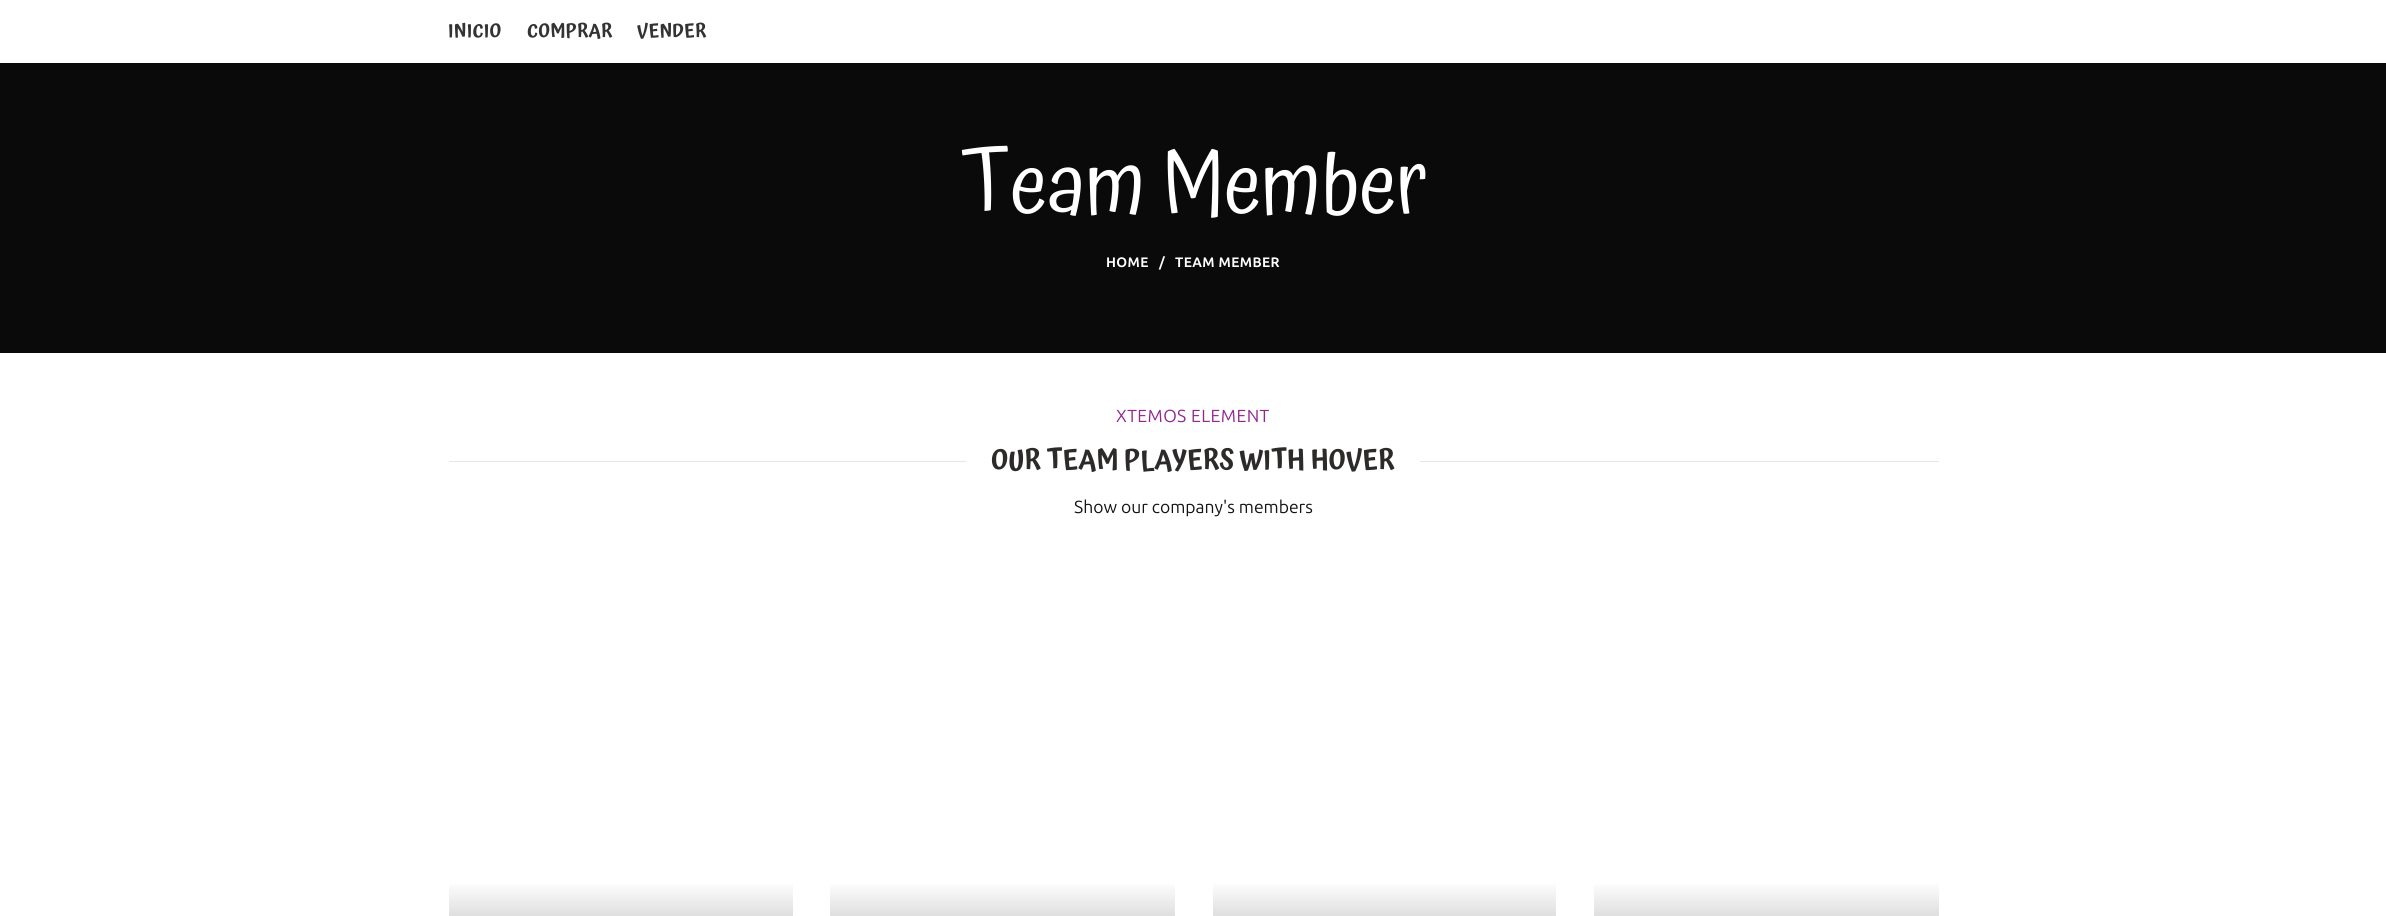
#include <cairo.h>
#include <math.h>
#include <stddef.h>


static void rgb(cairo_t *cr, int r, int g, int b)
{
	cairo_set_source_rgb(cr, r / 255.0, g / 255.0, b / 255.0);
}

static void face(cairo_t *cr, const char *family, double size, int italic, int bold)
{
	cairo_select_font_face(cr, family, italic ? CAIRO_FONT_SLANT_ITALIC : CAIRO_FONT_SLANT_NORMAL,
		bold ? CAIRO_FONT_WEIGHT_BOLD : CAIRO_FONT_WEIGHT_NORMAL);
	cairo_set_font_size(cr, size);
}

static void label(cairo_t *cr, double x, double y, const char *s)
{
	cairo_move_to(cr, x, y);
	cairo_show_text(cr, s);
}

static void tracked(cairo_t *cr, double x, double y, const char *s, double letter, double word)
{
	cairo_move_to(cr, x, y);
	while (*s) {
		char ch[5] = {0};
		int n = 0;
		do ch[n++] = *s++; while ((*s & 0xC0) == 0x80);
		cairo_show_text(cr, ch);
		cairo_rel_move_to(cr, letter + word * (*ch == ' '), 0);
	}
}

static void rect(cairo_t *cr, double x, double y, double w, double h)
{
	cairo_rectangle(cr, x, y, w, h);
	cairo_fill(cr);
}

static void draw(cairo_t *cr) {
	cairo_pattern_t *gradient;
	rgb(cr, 255, 255, 255);
	cairo_paint(cr);
	face(cr, "Atma SemiBold", 18.75, 0, 0);
	rgb(cr, 51, 51, 51);
	tracked(cr, 448, 37, "INICIO", 0.25, 0);
	tracked(cr, 527, 37, "COMPRAR", 0.25, 0);
	tracked(cr, 637, 37, "VENDER", 0.25, 0);
	rgb(cr, 10, 10, 10);
	rect(cr, 0, 63, 2386, 290);
	face(cr, "Atma", 85, 0, 0);
	rgb(cr, 255, 255, 255);
	label(cr, 960, 213, "Team Member");
	face(cr, "Ubuntu", 13.75, 0, 1);
	tracked(cr, 1106, 267, "HOME", 0.4, 0);
	tracked(cr, 1159, 267, "/", 0.4, 0);
	tracked(cr, 1175, 267, "TEAM MEMBER", 0.4, 0);
	face(cr, "Ubuntu", 17.5, 0, 0);
	rgb(cr, 147, 38, 143);
	tracked(cr, 1116, 422, "XTEMOS ELEMENT", 0.4, 0);
	rgb(cr, 230, 230, 230);
	rect(cr, 449, 461, 517, 1);
	face(cr, "Atma SemiBold", 27.5, 0, 0);
	rgb(cr, 45, 42, 42);
	label(cr, 991, 469, "OUR TEAM PLAYERS WITH HOVER");
	rgb(cr, 230, 230, 230);
	rect(cr, 1420, 461, 519, 1);
	face(cr, "Ubuntu", 17.5, 0, 0);
	rgb(cr, 20, 20, 20);
	label(cr, 1074, 513, "Show our company's members");
	gradient = cairo_pattern_create_linear(621, 881, 621, 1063);
	cairo_pattern_add_color_stop_rgba(gradient, 0, 1, 1, 1, 1);
	cairo_pattern_add_color_stop_rgba(gradient, 1, 0.349, 0.349, 0.349, 1);
	cairo_set_source(cr, gradient);
	cairo_pattern_destroy(gradient);
	rect(cr, 449, 884, 344, 32);
	gradient = cairo_pattern_create_linear(1003, 881, 1003, 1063);
	cairo_pattern_add_color_stop_rgba(gradient, 0, 1, 1, 1, 1);
	cairo_pattern_add_color_stop_rgba(gradient, 1, 0.349, 0.349, 0.349, 1);
	cairo_set_source(cr, gradient);
	cairo_pattern_destroy(gradient);
	rect(cr, 830, 884, 345, 32);
	gradient = cairo_pattern_create_linear(1384, 881, 1384, 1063);
	cairo_pattern_add_color_stop_rgba(gradient, 0, 1, 1, 1, 1);
	cairo_pattern_add_color_stop_rgba(gradient, 1, 0.349, 0.349, 0.349, 1);
	cairo_set_source(cr, gradient);
	cairo_pattern_destroy(gradient);
	rect(cr, 1213, 884, 343, 32);
	gradient = cairo_pattern_create_linear(1766, 881, 1766, 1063);
	cairo_pattern_add_color_stop_rgba(gradient, 0, 1, 1, 1, 1);
	cairo_pattern_add_color_stop_rgba(gradient, 1, 0.349, 0.349, 0.349, 1);
	cairo_set_source(cr, gradient);
	cairo_pattern_destroy(gradient);
	rect(cr, 1594, 884, 345, 32);
}

int main(void) {
	cairo_surface_t *surface = cairo_image_surface_create(CAIRO_FORMAT_RGB24, 2386, 916);
	cairo_t *cr = cairo_create(surface);
	cairo_font_options_t *options = cairo_font_options_create();
	cairo_font_options_set_hint_metrics(options, CAIRO_HINT_METRICS_OFF);
	cairo_font_options_set_hint_style(options, CAIRO_HINT_STYLE_NONE);
	cairo_set_font_options(cr, options);
	cairo_set_miter_limit(cr, 4);
	draw(cr);
	cairo_surface_write_to_png(surface, "render.png");
	cairo_font_options_destroy(options);
	cairo_destroy(cr);
	cairo_surface_destroy(surface);
	return 0;
}
